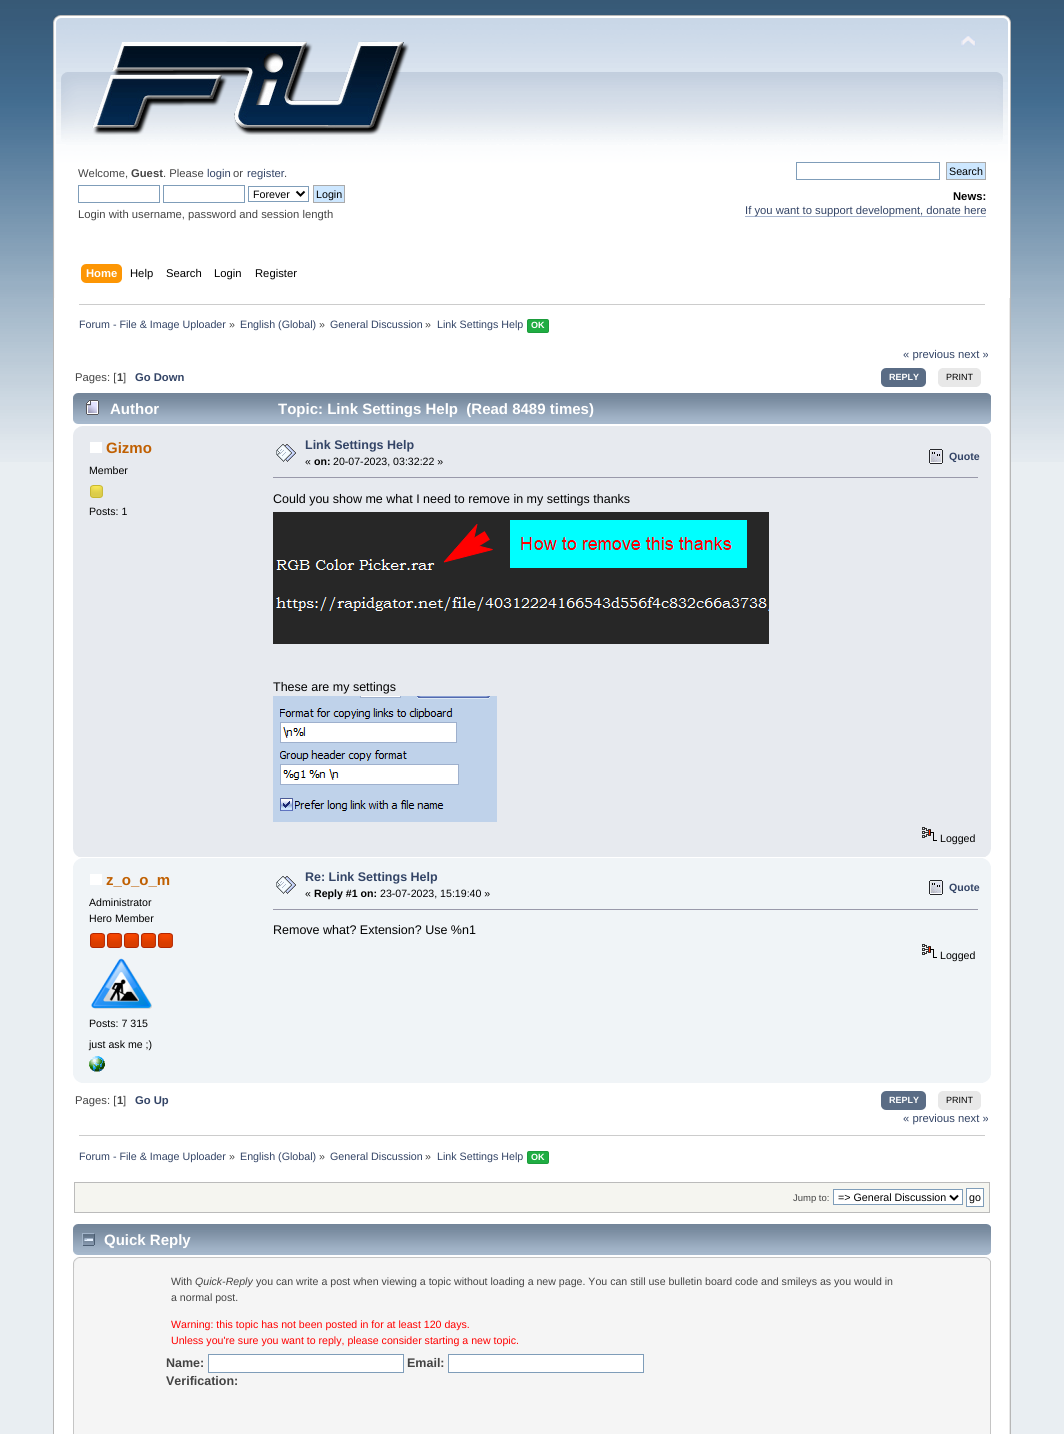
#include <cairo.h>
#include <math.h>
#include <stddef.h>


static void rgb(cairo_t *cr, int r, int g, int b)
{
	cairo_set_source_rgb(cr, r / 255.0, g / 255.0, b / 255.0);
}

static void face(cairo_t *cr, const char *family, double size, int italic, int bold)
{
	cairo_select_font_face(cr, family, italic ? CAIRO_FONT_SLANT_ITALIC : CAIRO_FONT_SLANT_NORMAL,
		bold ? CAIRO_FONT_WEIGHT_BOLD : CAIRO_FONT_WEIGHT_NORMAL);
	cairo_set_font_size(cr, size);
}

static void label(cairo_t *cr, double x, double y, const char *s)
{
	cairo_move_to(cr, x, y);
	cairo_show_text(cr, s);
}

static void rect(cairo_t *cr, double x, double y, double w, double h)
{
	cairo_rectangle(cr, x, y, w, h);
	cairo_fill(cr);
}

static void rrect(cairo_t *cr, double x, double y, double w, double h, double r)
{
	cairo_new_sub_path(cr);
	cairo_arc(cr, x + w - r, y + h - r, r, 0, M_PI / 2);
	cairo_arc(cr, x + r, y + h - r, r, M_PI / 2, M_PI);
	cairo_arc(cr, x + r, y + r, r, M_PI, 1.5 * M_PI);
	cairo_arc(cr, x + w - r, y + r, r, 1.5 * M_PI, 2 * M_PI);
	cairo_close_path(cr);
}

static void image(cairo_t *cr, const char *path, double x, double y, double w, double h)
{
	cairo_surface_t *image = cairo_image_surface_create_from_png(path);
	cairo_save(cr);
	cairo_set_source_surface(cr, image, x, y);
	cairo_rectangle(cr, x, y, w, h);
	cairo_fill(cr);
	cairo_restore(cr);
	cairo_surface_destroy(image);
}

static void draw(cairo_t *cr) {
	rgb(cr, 233, 238, 242);
	cairo_paint(cr);
	image(cr, "image0.png", 0, 0, 1064, 462);
	image(cr, "image1.png", 53, 15, 944, 283);
	image(cr, "image2.png", 997, 15, 14, 283);
	image(cr, "image3.png", 92, 41, 317, 94);
	image(cr, "image4.png", 961, 35, 15, 12);
	face(cr, "Liberation Sans", 11.25, 0, 0);
	rgb(cr, 68, 68, 68);
	label(cr, 78, 177, "Welcome,");
	face(cr, "Liberation Sans", 11.25, 0, 1);
	label(cr, 131, 177, "Guest");
	face(cr, "Liberation Sans", 11.25, 0, 0);
	label(cr, 163, 177, ". Please");
	rgb(cr, 51, 68, 102);
	label(cr, 207, 177, "login");
	rgb(cr, 68, 68, 68);
	label(cr, 233, 177, "or");
	rgb(cr, 51, 68, 102);
	label(cr, 247, 177, "register");
	rgb(cr, 68, 68, 68);
	label(cr, 284, 177, ".");
	cairo_rectangle(cr, 78.5, 185.5, 81, 17);
	rgb(cr, 127, 157, 185);
	cairo_set_line_width(cr, 1);
	cairo_stroke(cr);
	cairo_rectangle(cr, 163.5, 185.5, 81, 17);
	cairo_stroke(cr);
	cairo_rectangle(cr, 248.5, 186.5, 60, 15);
	cairo_stroke(cr);
	cairo_new_path(cr);
	cairo_move_to(cr, 296.5, 191.5);
	cairo_line_to(cr, 300.5, 195.5);
	cairo_line_to(cr, 304.5, 191.5);
	rgb(cr, 0, 0, 0);
	cairo_set_line_width(cr, 2);
	cairo_stroke(cr);
	face(cr, "Liberation Sans", 10.7, 0, 0);
	label(cr, 253, 198, "Forever");
	rgb(cr, 205, 231, 255);
	cairo_rectangle(cr, 313.5, 185.5, 31, 17);
	cairo_fill_preserve(cr);
	rgb(cr, 170, 170, 170);
	cairo_set_line_width(cr, 1);
	cairo_stroke(cr);
	rgb(cr, 0, 0, 0);
	label(cr, 316, 198, "Login");
	face(cr, "Liberation Sans", 11.25, 0, 0);
	rgb(cr, 68, 68, 68);
	label(cr, 78, 218, "Login with username, password and session length");
	cairo_rectangle(cr, 796.5, 162.5, 143, 17);
	rgb(cr, 127, 157, 185);
	cairo_stroke(cr);
	rgb(cr, 205, 231, 255);
	cairo_rectangle(cr, 946.5, 162.5, 39, 17);
	cairo_fill_preserve(cr);
	rgb(cr, 170, 170, 170);
	cairo_stroke(cr);
	face(cr, "Liberation Sans", 10.7, 0, 0);
	rgb(cr, 0, 0, 0);
	label(cr, 949, 175, "Search");
	face(cr, "Liberation Sans", 11.25, 0, 1);
	label(cr, 953, 200, "News:");
	rgb(cr, 168, 182, 207);
	rect(cr, 745, 216, 241, 1);
	face(cr, "Liberation Sans", 11.25, 0, 0);
	rgb(cr, 51, 68, 102);
	label(cr, 745, 214, "If you want to support development, donate here");
	image(cr, "image5.png", 86, 264, 36, 19);
	image(cr, "image6.png", 81, 264, 5, 19);
	face(cr, "Liberation Sans", 11.25, 0, 1);
	rgb(cr, 255, 255, 255);
	label(cr, 86, 277, "Home");
	face(cr, "Liberation Sans", 11.25, 0, 0);
	rgb(cr, 0, 0, 0);
	label(cr, 130, 277, "Help");
	label(cr, 166, 277, "Search");
	label(cr, 214, 277, "Login");
	label(cr, 255, 277, "Register");
	rgb(cr, 255, 255, 255);
	rect(cr, 54, 298, 955, 1136);
	rgb(cr, 183, 183, 183);
	rect(cr, 53, 298, 1, 1136);
	image(cr, "image7.png", 1009, 298, 2, 1136);
	rgb(cr, 204, 204, 204);
	rect(cr, 79, 304, 906, 1);
	face(cr, "Liberation Sans", 10.7, 0, 0);
	rgb(cr, 51, 68, 102);
	label(cr, 79, 328, "Forum - File & Image Uploader");
	rgb(cr, 68, 68, 68);
	label(cr, 229, 328, "»");
	rgb(cr, 51, 68, 102);
	label(cr, 240, 328, "English (Global)");
	rgb(cr, 68, 68, 68);
	label(cr, 319, 328, "»");
	rgb(cr, 51, 68, 102);
	label(cr, 330, 328, "General Discussion");
	rgb(cr, 68, 68, 68);
	label(cr, 425, 328, "»");
	rgb(cr, 51, 68, 102);
	label(cr, 437, 328, "Link Settings Help");
	rgb(cr, 31, 173, 66);
	rrect(cr, 527, 319, 22, 14, 2);
	cairo_fill(cr);
	rrect(cr, 527.5, 319.5, 21, 13, 1.5);
	cairo_set_source_rgba(cr, 0, 0, 0, 0.1);
	cairo_stroke(cr);
	face(cr, "Liberation Sans", 9, 0, 1);
	rgb(cr, 255, 255, 255);
	label(cr, 531, 328, "OK");
	face(cr, "Liberation Sans", 11.25, 0, 0);
	rgb(cr, 51, 68, 102);
	label(cr, 903, 358, "« previous next »");
	rgb(cr, 68, 68, 68);
	label(cr, 75, 381, "Pages: [");
	face(cr, "Liberation Sans", 11.25, 0, 1);
	label(cr, 117, 381, "1");
	face(cr, "Liberation Sans", 11.25, 0, 0);
	label(cr, 123, 381, "]");
	face(cr, "Liberation Sans", 11.25, 0, 1);
	rgb(cr, 51, 68, 102);
	label(cr, 135, 381, "Go Down");
	rgb(cr, 90, 108, 133);
	rect(cr, 886, 368, 35, 19);
	image(cr, "image8.png", 881, 368, 5, 19);
	image(cr, "image9.png", 921, 368, 5, 19);
	face(cr, "Liberation Sans", 9, 0, 1);
	rgb(cr, 255, 255, 255);
	label(cr, 889, 380, "REPLY");
	rgb(cr, 232, 232, 232);
	rect(cr, 942, 368, 35, 19);
	image(cr, "image10.png", 938, 368, 4, 19);
	image(cr, "image11.png", 977, 368, 4, 19);
	face(cr, "Liberation Sans", 9, 0, 0);
	rgb(cr, 0, 0, 0);
	label(cr, 946, 380, "PRINT");
	image(cr, "image12.png", 73, 393, 913, 31);
	image(cr, "image13.png", 986, 393, 5, 31);
	image(cr, "image14.png", 86, 400, 13, 15);
	face(cr, "Liberation Sans", 15, 0, 1);
	rgb(cr, 255, 255, 255);
	label(cr, 110, 414, "Author");
	label(cr, 278, 414, "Topic: Link Settings Help  (Read 8489 times)");
	rgb(cr, 231, 234, 239);
	rect(cr, 73, 426, 918, 431);
	image(cr, "image15.png", 73, 426, 9, 9);
	image(cr, "image16.png", 982, 426, 9, 8);
	rgb(cr, 255, 255, 255);
	rect(cr, 90, 442, 12, 11);
	rgb(cr, 192, 96, 2);
	label(cr, 106, 453, "Gizmo");
	face(cr, "Liberation Sans", 10.6, 0, 0);
	rgb(cr, 0, 0, 0);
	label(cr, 89, 474, "Member");
	image(cr, "image17.png", 90, 485, 13, 13);
	label(cr, 89, 515, "Posts: 1");
	image(cr, "image18.png", 276, 444, 20, 18);
	face(cr, "Liberation Sans", 12.5, 0, 1);
	rgb(cr, 51, 68, 102);
	label(cr, 305, 449, "Link Settings Help");
	face(cr, "Liberation Sans", 10.6, 0, 0);
	rgb(cr, 0, 0, 0);
	label(cr, 305, 465, "«");
	face(cr, "Liberation Sans", 10.6, 0, 1);
	label(cr, 314, 465, "on:");
	face(cr, "Liberation Sans", 10.6, 0, 0);
	label(cr, 333, 465, "20-07-2023, 03:32:22 »");
	image(cr, "image19.png", 929, 449, 14, 15);
	face(cr, "Liberation Sans", 10.6, 0, 1);
	rgb(cr, 51, 68, 102);
	label(cr, 949, 460, "Quote");
	rgb(cr, 153, 153, 170);
	rect(cr, 273, 477, 705, 1);
	face(cr, "Liberation Sans", 12.5, 0, 0);
	rgb(cr, 0, 0, 0);
	label(cr, 273, 503, "Could you show me what I need to remove in my settings thanks");
	image(cr, "image20.png", 273, 512, 496, 132);
	label(cr, 273, 691, "These are my settings");
	image(cr, "image21.png", 273, 696, 224, 126);
	image(cr, "image22.png", 922, 827, 15, 14);
	face(cr, "Liberation Sans", 10.6, 0, 0);
	label(cr, 940, 842, "Logged");
	image(cr, "image23.png", 73, 849, 6, 8);
	image(cr, "image24.png", 985, 849, 6, 8);
	rgb(cr, 240, 244, 247);
	rect(cr, 73, 858, 918, 225);
	image(cr, "image25.png", 73, 858, 8, 8);
	image(cr, "image26.png", 983, 858, 8, 8);
	rgb(cr, 255, 255, 255);
	rect(cr, 90, 874, 12, 11);
	face(cr, "Liberation Sans", 15, 0, 1);
	rgb(cr, 192, 96, 2);
	label(cr, 106, 885, "z_o_o_m");
	face(cr, "Liberation Sans", 10.6, 0, 0);
	rgb(cr, 0, 0, 0);
	label(cr, 89, 906, "Administrator");
	label(cr, 89, 922, "Hero Member");
	image(cr, "image27.png", 90, 933, 15, 15);
	image(cr, "image27.png", 107, 933, 15, 15);
	image(cr, "image27.png", 124, 933, 15, 15);
	image(cr, "image27.png", 141, 933, 15, 15);
	image(cr, "image27.png", 158, 933, 15, 15);
	image(cr, "image28.png", 91, 958, 61, 51);
	label(cr, 89, 1027, "Posts: 7 315");
	label(cr, 89, 1048, "just ask me ;)");
	image(cr, "image29.png", 89, 1056, 16, 16);
	image(cr, "image30.png", 276, 876, 20, 18);
	face(cr, "Liberation Sans", 12.5, 0, 1);
	rgb(cr, 51, 68, 102);
	label(cr, 305, 881, "Re: Link Settings Help");
	face(cr, "Liberation Sans", 10.6, 0, 0);
	rgb(cr, 0, 0, 0);
	label(cr, 305, 897, "«");
	face(cr, "Liberation Sans", 10.6, 0, 1);
	label(cr, 314, 897, "Reply #1 on:");
	face(cr, "Liberation Sans", 10.6, 0, 0);
	label(cr, 380, 897, "23-07-2023, 15:19:40 »");
	image(cr, "image31.png", 929, 880, 14, 15);
	face(cr, "Liberation Sans", 10.6, 0, 1);
	rgb(cr, 51, 68, 102);
	label(cr, 949, 891, "Quote");
	rgb(cr, 153, 153, 170);
	rect(cr, 273, 909, 705, 1);
	face(cr, "Liberation Sans", 12.5, 0, 0);
	rgb(cr, 0, 0, 0);
	label(cr, 273, 934, "Remove what? Extension? Use %n1");
	image(cr, "image32.png", 922, 944, 15, 14);
	face(cr, "Liberation Sans", 10.6, 0, 0);
	label(cr, 940, 959, "Logged");
	image(cr, "image33.png", 73, 1075, 8, 8);
	image(cr, "image34.png", 983, 1075, 8, 8);
	face(cr, "Liberation Sans", 11.25, 0, 0);
	rgb(cr, 68, 68, 68);
	label(cr, 75, 1104, "Pages: [");
	face(cr, "Liberation Sans", 11.25, 0, 1);
	label(cr, 117, 1104, "1");
	face(cr, "Liberation Sans", 11.25, 0, 0);
	label(cr, 123, 1104, "]");
	face(cr, "Liberation Sans", 11.25, 0, 1);
	rgb(cr, 51, 68, 102);
	label(cr, 135, 1104, "Go Up");
	rgb(cr, 90, 108, 133);
	rect(cr, 886, 1091, 35, 19);
	image(cr, "image8.png", 881, 1091, 5, 19);
	image(cr, "image9.png", 921, 1091, 5, 19);
	face(cr, "Liberation Sans", 9, 0, 1);
	rgb(cr, 255, 255, 255);
	label(cr, 889, 1103, "REPLY");
	rgb(cr, 232, 232, 232);
	rect(cr, 942, 1091, 35, 19);
	image(cr, "image10.png", 938, 1091, 4, 19);
	image(cr, "image11.png", 977, 1091, 4, 19);
	face(cr, "Liberation Sans", 9, 0, 0);
	rgb(cr, 0, 0, 0);
	label(cr, 946, 1103, "PRINT");
	face(cr, "Liberation Sans", 11.25, 0, 0);
	rgb(cr, 51, 68, 102);
	label(cr, 903, 1122, "« previous next »");
	rgb(cr, 204, 204, 204);
	rect(cr, 79, 1135, 906, 1);
	face(cr, "Liberation Sans", 10.7, 0, 0);
	rgb(cr, 51, 68, 102);
	label(cr, 79, 1160, "Forum - File & Image Uploader");
	rgb(cr, 68, 68, 68);
	label(cr, 229, 1160, "»");
	rgb(cr, 51, 68, 102);
	label(cr, 240, 1160, "English (Global)");
	rgb(cr, 68, 68, 68);
	label(cr, 319, 1160, "»");
	rgb(cr, 51, 68, 102);
	label(cr, 330, 1160, "General Discussion");
	rgb(cr, 68, 68, 68);
	label(cr, 425, 1160, "»");
	rgb(cr, 51, 68, 102);
	label(cr, 437, 1160, "Link Settings Help");
	rgb(cr, 31, 173, 66);
	rrect(cr, 527, 1151, 22, 13, 2);
	cairo_fill(cr);
	rrect(cr, 527.5, 1151.5, 21, 12, 1.5);
	cairo_set_source_rgba(cr, 0, 0, 0, 0.1);
	cairo_stroke(cr);
	face(cr, "Liberation Sans", 9, 0, 1);
	rgb(cr, 255, 255, 255);
	label(cr, 531, 1160, "OK");
	rgb(cr, 245, 245, 240);
	cairo_rectangle(cr, 74.5, 1182.5, 915, 30);
	cairo_fill_preserve(cr);
	rgb(cr, 187, 187, 187);
	cairo_stroke(cr);
	face(cr, "Liberation Sans", 9.5, 0, 0);
	rgb(cr, 68, 68, 68);
	label(cr, 793, 1201, "Jump to:");
	rgb(cr, 255, 255, 255);
	cairo_rectangle(cr, 833.5, 1189.5, 129, 15);
	cairo_fill_preserve(cr);
	rgb(cr, 127, 157, 185);
	cairo_stroke(cr);
	cairo_new_path(cr);
	cairo_move_to(cr, 950, 1195.5);
	cairo_line_to(cr, 954, 1199.5);
	cairo_line_to(cr, 958, 1195.5);
	rgb(cr, 0, 0, 0);
	cairo_set_line_width(cr, 2);
	cairo_stroke(cr);
	face(cr, "Liberation Sans", 10.7, 0, 0);
	label(cr, 838, 1201, "=> General Discussion");
	rgb(cr, 255, 255, 255);
	cairo_rectangle(cr, 966.5, 1188.5, 17, 18);
	cairo_fill_preserve(cr);
	rgb(cr, 127, 157, 185);
	cairo_set_line_width(cr, 1);
	cairo_stroke(cr);
	rgb(cr, 0, 0, 0);
	label(cr, 969, 1201, "go");
	image(cr, "image12.png", 73, 1224, 913, 31);
	image(cr, "image13.png", 986, 1224, 5, 31);
	image(cr, "image35.png", 82, 1233, 13, 13);
	face(cr, "Liberation Sans", 15, 0, 1);
	rgb(cr, 255, 255, 255);
	label(cr, 104, 1245, "Quick Reply");
	image(cr, "image36.png", 73, 1257, 912, 11);
	image(cr, "image37.png", 985, 1257, 6, 11);
	rgb(cr, 245, 245, 245);
	rect(cr, 74, 1268, 916, 166);
	rgb(cr, 197, 197, 197);
	rect(cr, 990, 1268, 1, 166);
	rect(cr, 73, 1268, 1, 166);
	face(cr, "Liberation Sans", 10.6, 0, 0);
	rgb(cr, 68, 68, 68);
	label(cr, 171, 1285, "With");
	face(cr, "Liberation Sans", 10.6, 1, 0);
	label(cr, 195, 1285, "Quick-Reply");
	face(cr, "Liberation Sans", 10.6, 0, 0);
	label(cr, 256, 1285, "you can write a post when viewing a topic without loading a new page. You can still use bulletin board code and smileys as you would in");
	label(cr, 171, 1301, "a normal post.");
	rgb(cr, 255, 0, 0);
	label(cr, 171, 1328, "Warning: this topic has not been posted in for at least 120 days.");
	label(cr, 171, 1344, "Unless you're sure you want to reply, please consider starting a new topic.");
	face(cr, "Liberation Sans", 12.5, 0, 1);
	rgb(cr, 68, 68, 68);
	label(cr, 166, 1367, "Name:");
	rgb(cr, 255, 255, 255);
	cairo_rectangle(cr, 208.5, 1354.5, 195, 18);
	cairo_fill_preserve(cr);
	rgb(cr, 127, 157, 185);
	cairo_stroke(cr);
	rgb(cr, 68, 68, 68);
	label(cr, 407, 1367, "Email:");
	rgb(cr, 255, 255, 255);
	cairo_rectangle(cr, 448.5, 1354.5, 195, 18);
	cairo_fill_preserve(cr);
	rgb(cr, 127, 157, 185);
	cairo_stroke(cr);
	rgb(cr, 68, 68, 68);
	label(cr, 166, 1385, "Verification:");
}

int main(void) {
	cairo_surface_t *surface = cairo_image_surface_create(CAIRO_FORMAT_RGB24, 1064, 1434);
	cairo_t *cr = cairo_create(surface);
	cairo_font_options_t *options = cairo_font_options_create();
	cairo_font_options_set_hint_metrics(options, CAIRO_HINT_METRICS_OFF);
	cairo_font_options_set_hint_style(options, CAIRO_HINT_STYLE_NONE);
	cairo_set_font_options(cr, options);
	cairo_set_miter_limit(cr, 4);
	draw(cr);
	cairo_surface_write_to_png(surface, "render.png");
	cairo_font_options_destroy(options);
	cairo_destroy(cr);
	cairo_surface_destroy(surface);
	return 0;
}
